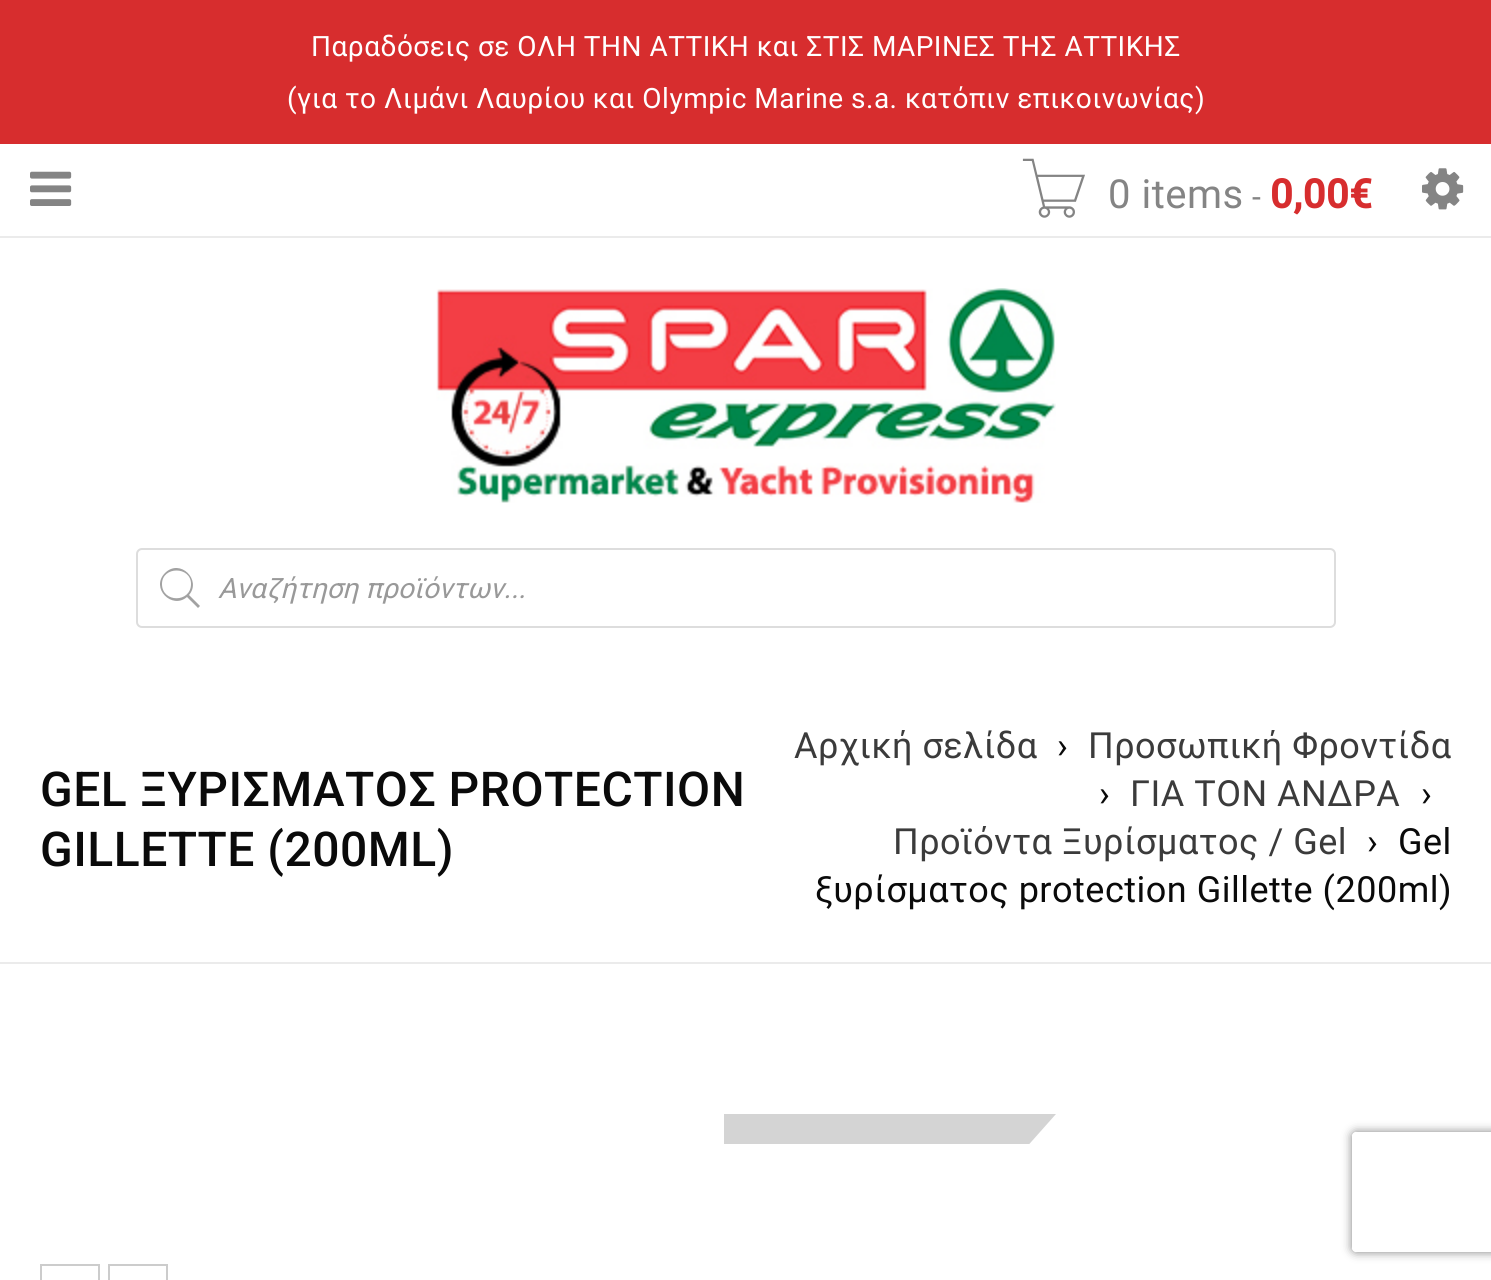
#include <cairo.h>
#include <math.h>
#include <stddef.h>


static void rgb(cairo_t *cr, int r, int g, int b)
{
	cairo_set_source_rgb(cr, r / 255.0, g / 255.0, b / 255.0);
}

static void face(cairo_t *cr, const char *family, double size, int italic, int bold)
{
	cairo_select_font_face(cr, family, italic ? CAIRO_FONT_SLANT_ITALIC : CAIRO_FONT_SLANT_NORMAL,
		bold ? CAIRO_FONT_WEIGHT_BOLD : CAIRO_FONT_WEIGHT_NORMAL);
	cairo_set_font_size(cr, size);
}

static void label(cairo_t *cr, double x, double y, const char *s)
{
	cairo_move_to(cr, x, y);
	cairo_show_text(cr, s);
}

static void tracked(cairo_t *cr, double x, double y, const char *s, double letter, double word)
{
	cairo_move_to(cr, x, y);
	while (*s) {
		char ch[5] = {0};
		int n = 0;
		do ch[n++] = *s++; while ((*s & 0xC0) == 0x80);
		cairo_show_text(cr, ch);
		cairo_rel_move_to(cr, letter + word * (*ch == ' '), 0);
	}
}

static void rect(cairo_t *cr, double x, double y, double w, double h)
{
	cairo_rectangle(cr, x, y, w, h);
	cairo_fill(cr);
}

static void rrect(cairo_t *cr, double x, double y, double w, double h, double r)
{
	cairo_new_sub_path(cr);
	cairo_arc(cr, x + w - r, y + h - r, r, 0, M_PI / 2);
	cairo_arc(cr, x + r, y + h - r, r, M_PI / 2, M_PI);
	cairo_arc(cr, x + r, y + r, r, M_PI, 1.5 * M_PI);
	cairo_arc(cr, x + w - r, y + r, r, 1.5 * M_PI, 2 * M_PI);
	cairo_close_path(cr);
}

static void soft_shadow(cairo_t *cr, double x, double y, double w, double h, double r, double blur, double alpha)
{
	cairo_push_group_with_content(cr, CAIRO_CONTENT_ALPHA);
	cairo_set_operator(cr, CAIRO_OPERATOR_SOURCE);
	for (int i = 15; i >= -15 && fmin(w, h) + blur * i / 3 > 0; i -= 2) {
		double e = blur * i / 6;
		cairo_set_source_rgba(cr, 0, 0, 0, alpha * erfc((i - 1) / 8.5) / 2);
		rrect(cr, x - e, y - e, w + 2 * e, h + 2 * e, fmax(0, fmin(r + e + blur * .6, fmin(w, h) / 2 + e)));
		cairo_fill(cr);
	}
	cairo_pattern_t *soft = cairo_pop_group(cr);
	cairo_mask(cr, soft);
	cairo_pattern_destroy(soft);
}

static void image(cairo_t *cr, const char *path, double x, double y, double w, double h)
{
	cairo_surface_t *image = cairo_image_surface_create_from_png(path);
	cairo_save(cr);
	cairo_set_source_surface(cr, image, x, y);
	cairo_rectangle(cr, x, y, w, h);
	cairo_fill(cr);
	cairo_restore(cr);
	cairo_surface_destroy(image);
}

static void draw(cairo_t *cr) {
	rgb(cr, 255, 255, 255);
	cairo_paint(cr);
	rgb(cr, 215, 45, 46);
	rect(cr, 0, 0, 1491, 144);
	face(cr, "Roboto", 28, 0, 0);
	rgb(cr, 255, 255, 255);
	tracked(cr, 311, 56, "Παραδόσεις σε ΟΛΗ ΤΗΝ ΑΤΤΙΚΗ και ΣΤΙΣ ΜΑΡΙΝΕΣ ΤΗΣ ΑΤΤΙΚΗΣ", 0.5, 0);
	tracked(cr, 287, 108, "(για το Λιμάνι Λαυρίου και Olympic Marine s.a. κατόπιν επικοινωνίας)", 0.5, 0);
	rgb(cr, 235, 235, 235);
	rect(cr, 0, 236, 1491, 2);
	image(cr, "image0.png", 30, 171, 42, 35);
	image(cr, "image1.png", 1022, 158, 63, 60);
	face(cr, "Roboto", 40, 0, 0);
	rgb(cr, 132, 132, 132);
	tracked(cr, 1108, 208, "0 items", 0.5, 0);
	face(cr, "Roboto", 32, 0, 0);
	tracked(cr, 1252, 208, "-", 0.5, 0);
	face(cr, "Roboto", 40, 0, 1);
	rgb(cr, 215, 45, 46);
	tracked(cr, 1270, 208, "0,00€", 0.5, 0);
	image(cr, "image2.png", 1422, 168, 42, 42);
	image(cr, "image3.png", 436, 288, 620, 215);
	rrect(cr, 137, 549, 1198, 78, 5);
	rgb(cr, 221, 221, 221);
	cairo_stroke(cr);
	rgb(cr, 162, 162, 162);
	cairo_new_path(cr);
	cairo_move_to(cr, 200, 606);
	cairo_line_to(cr, 189, 595);
	cairo_curve_to(cr, 202, 580, 180, 558, 165, 573);
	cairo_curve_to(cr, 150, 588, 172, 610, 187, 597);
	cairo_line_to(cr, 198, 608);
	cairo_close_path(cr);
	cairo_move_to(cr, 162, 584);
	cairo_curve_to(cr, 162, 566, 191, 566, 191, 584);
	cairo_curve_to(cr, 191, 603, 162, 603, 162, 584);
	cairo_close_path(cr);
	cairo_fill(cr);
	face(cr, "Roboto", 28, 1, 0);
	rgb(cr, 153, 153, 153);
	label(cr, 218, 598, "Αναζήτηση προϊόντων...");
	rgb(cr, 235, 235, 235);
	rect(cr, 0, 962, 1491, 2);
	face(cr, "Roboto Medium", 48, 0, 0);
	rgb(cr, 10, 10, 10);
	tracked(cr, 40, 806, "GEL ΞΥΡΙΣΜΑΤΟΣ PROTECTION", 0.5, 0);
	tracked(cr, 40, 866, "GILLETTE (200ML)", 0.5, 0);
	face(cr, "Roboto", 36, 0, 0);
	rgb(cr, 59, 59, 59);
	tracked(cr, 794, 758, "Αρχική σελίδα", 0.5, 0);
	rgb(cr, 10, 10, 10);
	tracked(cr, 1057, 758, "›", 0.5, 0);
	rgb(cr, 59, 59, 59);
	tracked(cr, 1088, 758, "Προσωπική Φροντίδα", 0.5, 0);
	rgb(cr, 10, 10, 10);
	tracked(cr, 1099, 806, "›", 0.5, 0);
	rgb(cr, 59, 59, 59);
	tracked(cr, 1130, 806, "ΓΙΑ ΤΟΝ ΑΝΔΡΑ", 0.5, 0);
	rgb(cr, 10, 10, 10);
	tracked(cr, 1421, 806, "›", 0.5, 0);
	rgb(cr, 59, 59, 59);
	tracked(cr, 893, 854, "Προϊόντα Ξυρίσματος / Gel", 0.5, 0);
	rgb(cr, 10, 10, 10);
	tracked(cr, 1367, 854, "›", 0.5, 0);
	tracked(cr, 1398, 854, "Gel", 0.5, 0);
	tracked(cr, 815, 902, "ξυρίσματος protection Gillette (200ml)", 0.5, 0);
	rgb(cr, 212, 212, 212);
	rect(cr, 724, 1114, 300, 30);
	cairo_save(cr);
	cairo_rectangle(cr, 40, 1084, 1412, 60);
	cairo_clip(cr);
	cairo_new_path(cr);
	cairo_move_to(cr, 1024, 1114);
	cairo_line_to(cr, 1056, 1114);
	cairo_line_to(cr, 1024, 1150);
	cairo_close_path(cr);
	cairo_fill(cr);
	cairo_restore(cr);
	cairo_rectangle(cr, 41, 1265, 58, 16);
	rgb(cr, 204, 204, 204);
	cairo_stroke(cr);
	cairo_rectangle(cr, 109, 1265, 58, 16);
	cairo_stroke(cr);
	cairo_save(cr);
	cairo_set_fill_rule(cr, CAIRO_FILL_RULE_EVEN_ODD);
	cairo_new_path(cr);
	cairo_move_to(cr, 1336, 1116);
	cairo_line_to(cr, 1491, 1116);
	cairo_line_to(cr, 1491, 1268);
	cairo_line_to(cr, 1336, 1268);
	cairo_close_path(cr);
	cairo_move_to(cr, 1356, 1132);
	cairo_line_to(cr, 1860, 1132);
	cairo_curve_to(cr, 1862, 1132, 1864, 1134, 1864, 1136);
	cairo_line_to(cr, 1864, 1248);
	cairo_curve_to(cr, 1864, 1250, 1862, 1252, 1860, 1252);
	cairo_line_to(cr, 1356, 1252);
	cairo_curve_to(cr, 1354, 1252, 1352, 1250, 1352, 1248);
	cairo_line_to(cr, 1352, 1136);
	cairo_curve_to(cr, 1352, 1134, 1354, 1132, 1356, 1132);
	cairo_close_path(cr);
	cairo_clip(cr);
	rgb(cr, 128, 128, 128);
	soft_shadow(cr, 1352, 1132, 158, 120, 4, 5, 1);
	cairo_restore(cr);
}

int main(void) {
	cairo_surface_t *surface = cairo_image_surface_create(CAIRO_FORMAT_RGB24, 1491, 1280);
	cairo_t *cr = cairo_create(surface);
	cairo_font_options_t *options = cairo_font_options_create();
	cairo_font_options_set_hint_metrics(options, CAIRO_HINT_METRICS_OFF);
	cairo_font_options_set_hint_style(options, CAIRO_HINT_STYLE_NONE);
	cairo_set_font_options(cr, options);
	cairo_set_miter_limit(cr, 4);
	draw(cr);
	cairo_surface_write_to_png(surface, "render.png");
	cairo_font_options_destroy(options);
	cairo_destroy(cr);
	cairo_surface_destroy(surface);
	return 0;
}
